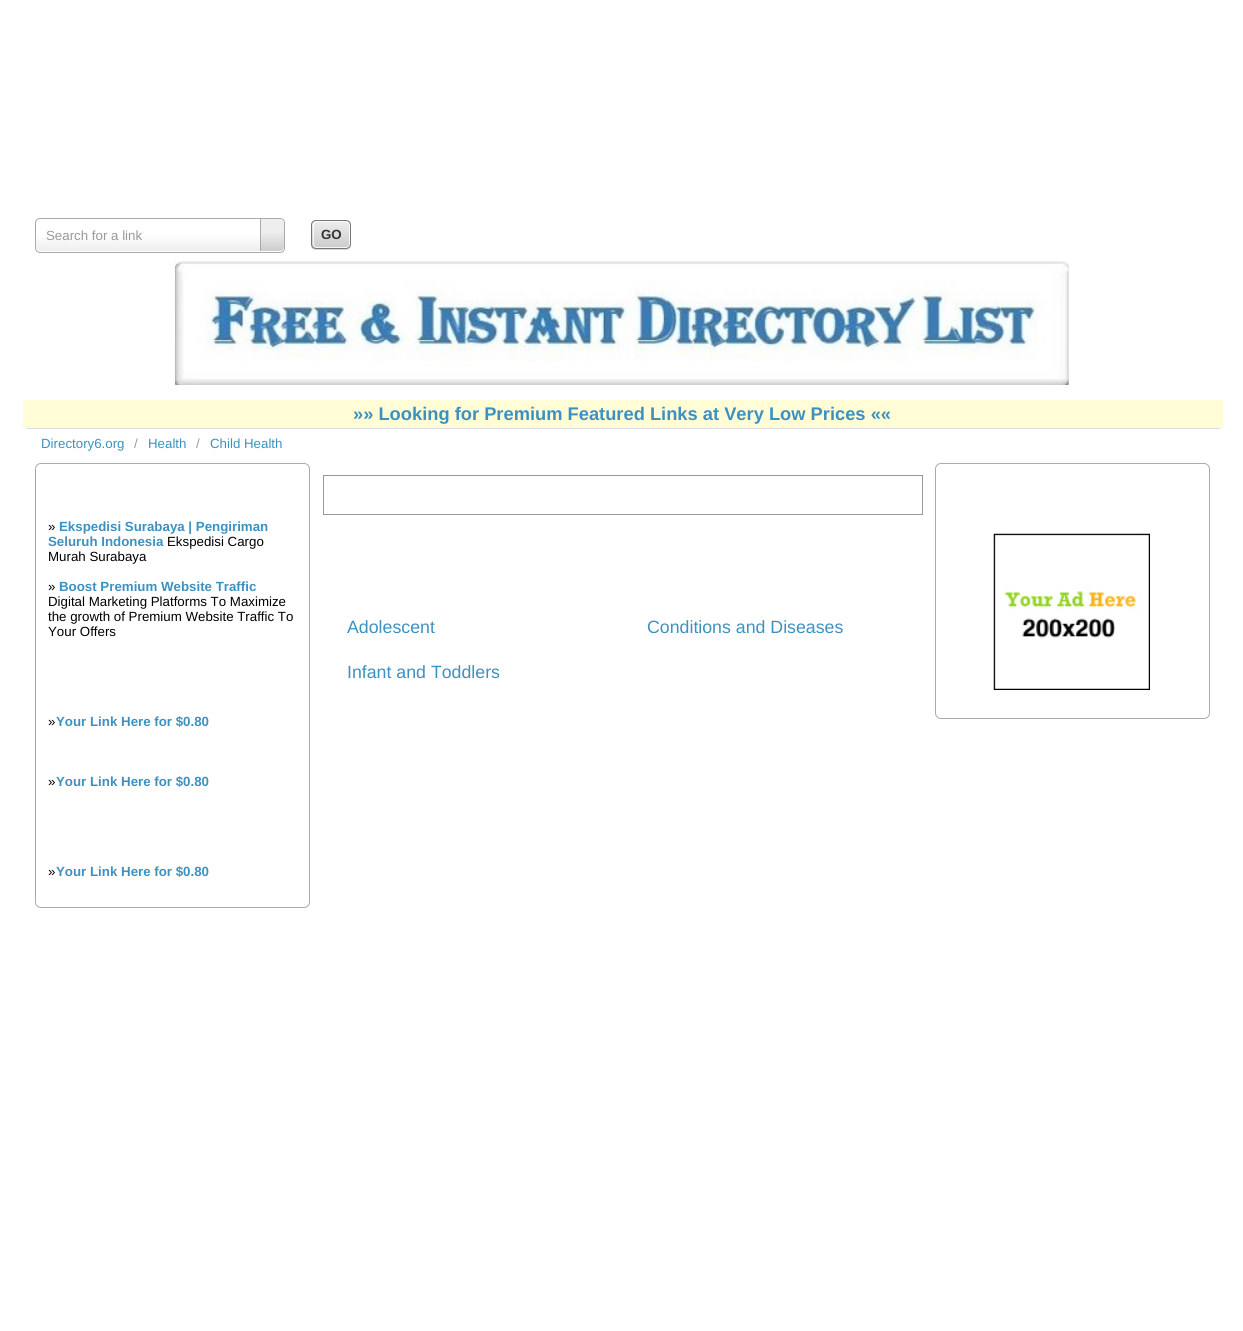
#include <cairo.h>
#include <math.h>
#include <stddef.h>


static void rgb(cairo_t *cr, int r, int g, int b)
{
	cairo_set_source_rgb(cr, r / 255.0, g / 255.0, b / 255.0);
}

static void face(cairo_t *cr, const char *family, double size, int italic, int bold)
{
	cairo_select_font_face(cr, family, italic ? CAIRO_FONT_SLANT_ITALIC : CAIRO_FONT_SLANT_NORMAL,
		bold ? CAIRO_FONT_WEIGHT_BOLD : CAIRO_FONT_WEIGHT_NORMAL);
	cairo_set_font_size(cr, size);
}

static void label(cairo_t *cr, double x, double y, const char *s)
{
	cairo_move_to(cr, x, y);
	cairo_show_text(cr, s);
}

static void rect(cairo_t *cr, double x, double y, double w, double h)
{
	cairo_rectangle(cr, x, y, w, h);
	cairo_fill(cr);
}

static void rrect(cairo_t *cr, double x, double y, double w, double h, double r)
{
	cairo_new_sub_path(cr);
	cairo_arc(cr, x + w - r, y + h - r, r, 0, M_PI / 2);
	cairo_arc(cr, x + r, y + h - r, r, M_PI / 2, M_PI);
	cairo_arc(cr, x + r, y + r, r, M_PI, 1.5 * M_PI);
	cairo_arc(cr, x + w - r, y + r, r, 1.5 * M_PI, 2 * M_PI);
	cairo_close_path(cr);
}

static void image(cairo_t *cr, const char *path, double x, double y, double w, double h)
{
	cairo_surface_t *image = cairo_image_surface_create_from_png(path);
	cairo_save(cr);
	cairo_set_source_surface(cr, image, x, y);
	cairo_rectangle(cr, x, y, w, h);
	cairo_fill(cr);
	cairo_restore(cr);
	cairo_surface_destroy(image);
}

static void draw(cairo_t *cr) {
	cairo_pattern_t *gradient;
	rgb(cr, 255, 255, 255);
	cairo_paint(cr);
	gradient = cairo_pattern_create_linear(36, 251, 36, 219);
	cairo_pattern_add_color_stop_rgba(gradient, 0, 0.933, 0.933, 0.933, 1);
	cairo_pattern_add_color_stop_rgba(gradient, 0.5, 1, 1, 1, 1);
	cairo_set_source(cr, gradient);
	cairo_pattern_destroy(gradient);
	rrect(cr, 36, 219, 248, 32, 4);
	cairo_fill(cr);
	rrect(cr, 35.5, 218.5, 249, 34, 4.5);
	rgb(cr, 170, 170, 170);
	cairo_set_line_width(cr, 1);
	cairo_stroke(cr);
	face(cr, "Liberation Sans", 13.3, 0, 0);
	rgb(cr, 153, 153, 153);
	label(cr, 46, 240, "Search for a link");
	cairo_save(cr);
	rrect(cr, 36, 219, 248, 32, 4);
	cairo_clip(cr);
	gradient = cairo_pattern_create_linear(261, 251, 261, 219);
	cairo_pattern_add_color_stop_rgba(gradient, 0, 0.8, 0.8, 0.8, 1);
	cairo_pattern_add_color_stop_rgba(gradient, 0.6, 0.933, 0.933, 0.933, 1);
	cairo_set_source(cr, gradient);
	cairo_pattern_destroy(gradient);
	cairo_new_path(cr);
	cairo_move_to(cr, 260, 219);
	cairo_line_to(cr, 279, 219);
	cairo_curve_to(cr, 282, 219, 284, 221, 284, 224);
	cairo_line_to(cr, 284, 246);
	cairo_curve_to(cr, 284, 249, 282, 251, 279, 251);
	cairo_line_to(cr, 260, 251);
	cairo_close_path(cr);
	cairo_fill(cr);
	cairo_restore(cr);
	rgb(cr, 170, 170, 170);
	rect(cr, 260, 219, 1, 32);
	rgb(cr, 217, 217, 217);
	cairo_new_path(cr);
	cairo_move_to(cr, 311.5, 224);
	cairo_line_to(cr, 311, 226);
	cairo_line_to(cr, 311, 245);
	cairo_curve_to(cr, 311, 248, 313, 250, 316, 250);
	cairo_line_to(cr, 346, 250);
	cairo_curve_to(cr, 348.5, 250, 351, 248, 351, 245);
	cairo_curve_to(cr, 349.5, 249.5, 344.5, 249, 341, 249);
	cairo_line_to(cr, 321.5, 249);
	cairo_curve_to(cr, 317.5, 249, 312.5, 249.5, 311.5, 244.5);
	cairo_close_path(cr);
	cairo_fill(cr);
	cairo_save(cr);
	rrect(cr, 311, 220, 40, 29, 5);
	cairo_clip(cr);
	gradient = cairo_pattern_create_linear(331, 221, 331, 248);
	cairo_pattern_add_color_stop_rgba(gradient, 0, 0.933, 0.933, 0.933, 1);
	cairo_pattern_add_color_stop_rgba(gradient, 1, 0.8, 0.8, 0.8, 1);
	cairo_set_source(cr, gradient);
	cairo_pattern_destroy(gradient);
	rect(cr, 311, 221, 40, 27);
	cairo_restore(cr);
	rrect(cr, 313.5, 221.5, 36, 26, 3.5);
	cairo_set_source_rgba(cr, 1, 1, 1, 0.8);
	cairo_stroke(cr);
	rrect(cr, 311.5, 220.5, 39, 28, 4.5);
	rgb(cr, 119, 119, 119);
	cairo_stroke(cr);
	face(cr, "Liberation Sans", 13.3, 0, 1);
	rgb(cr, 51, 51, 51);
	label(cr, 321, 239, "GO");
	image(cr, "image0.png", 175, 261, 894, 124);
	rgb(cr, 255, 252, 214);
	rect(cr, 23, 400, 1200, 28);
	face(cr, "Liberation Sans", 18.3, 0, 1);
	rgb(cr, 61, 145, 192);
	label(cr, 353, 420, "»» Looking for Premium Featured Links at Very Low Prices ««");
	rgb(cr, 221, 221, 221);
	rect(cr, 26, 428, 1194, 1);
	face(cr, "Liberation Sans", 13.3, 0, 0);
	rgb(cr, 61, 145, 192);
	label(cr, 41, 448, "Directory6.org");
	rgb(cr, 153, 153, 153);
	label(cr, 134, 448, "/");
	rgb(cr, 61, 145, 192);
	label(cr, 148, 448, "Health");
	rgb(cr, 153, 153, 153);
	label(cr, 196, 448, "/");
	rgb(cr, 61, 145, 192);
	label(cr, 210, 448, "Child Health");
	rrect(cr, 35.5, 463.5, 274, 444, 5.5);
	rgb(cr, 170, 170, 170);
	cairo_stroke(cr);
	rgb(cr, 0, 0, 0);
	label(cr, 48, 531, "»");
	face(cr, "Liberation Sans", 13.3, 0, 1);
	rgb(cr, 61, 145, 192);
	label(cr, 59, 531, "Ekspedisi Surabaya | Pengiriman");
	label(cr, 48, 546, "Seluruh Indonesia");
	face(cr, "Liberation Sans", 13.3, 0, 0);
	rgb(cr, 0, 0, 0);
	label(cr, 167, 546, "Ekspedisi Cargo");
	label(cr, 48, 561, "Murah Surabaya");
	label(cr, 48, 591, "»");
	face(cr, "Liberation Sans", 13.3, 0, 1);
	rgb(cr, 61, 145, 192);
	label(cr, 59, 591, "Boost Premium Website Traffic");
	face(cr, "Liberation Sans", 13.3, 0, 0);
	rgb(cr, 0, 0, 0);
	label(cr, 48, 606, "Digital Marketing Platforms To Maximize");
	label(cr, 48, 621, "the growth of Premium Website Traffic To");
	label(cr, 48, 636, "Your Offers");
	label(cr, 48, 726, "»");
	face(cr, "Liberation Sans", 13.3, 0, 1);
	rgb(cr, 61, 145, 192);
	label(cr, 56, 726, "Your Link Here for $0.80");
	face(cr, "Liberation Sans", 13.3, 0, 0);
	rgb(cr, 0, 0, 0);
	label(cr, 48, 786, "»");
	face(cr, "Liberation Sans", 13.3, 0, 1);
	rgb(cr, 61, 145, 192);
	label(cr, 56, 786, "Your Link Here for $0.80");
	face(cr, "Liberation Sans", 13.3, 0, 0);
	rgb(cr, 0, 0, 0);
	label(cr, 48, 876, "»");
	face(cr, "Liberation Sans", 13.3, 0, 1);
	rgb(cr, 61, 145, 192);
	label(cr, 56, 876, "Your Link Here for $0.80");
	cairo_rectangle(cr, 323.5, 475.5, 599, 39);
	rgb(cr, 153, 153, 153);
	cairo_stroke(cr);
	face(cr, "Liberation Sans", 17.75, 0, 0);
	rgb(cr, 61, 145, 192);
	label(cr, 347, 633, "Adolescent");
	label(cr, 647, 633, "Conditions and Diseases");
	label(cr, 347, 678, "Infant and Toddlers");
	rrect(cr, 935.5, 463.5, 274, 255, 5.5);
	rgb(cr, 170, 170, 170);
	cairo_stroke(cr);
	image(cr, "image1.png", 993, 533, 157, 157);
}

int main(void) {
	cairo_surface_t *surface = cairo_image_surface_create(CAIRO_FORMAT_RGB24, 1243, 1331);
	cairo_t *cr = cairo_create(surface);
	cairo_font_options_t *options = cairo_font_options_create();
	cairo_font_options_set_hint_metrics(options, CAIRO_HINT_METRICS_OFF);
	cairo_font_options_set_hint_style(options, CAIRO_HINT_STYLE_NONE);
	cairo_set_font_options(cr, options);
	cairo_set_miter_limit(cr, 4);
	draw(cr);
	cairo_surface_write_to_png(surface, "render.png");
	cairo_font_options_destroy(options);
	cairo_destroy(cr);
	cairo_surface_destroy(surface);
	return 0;
}
